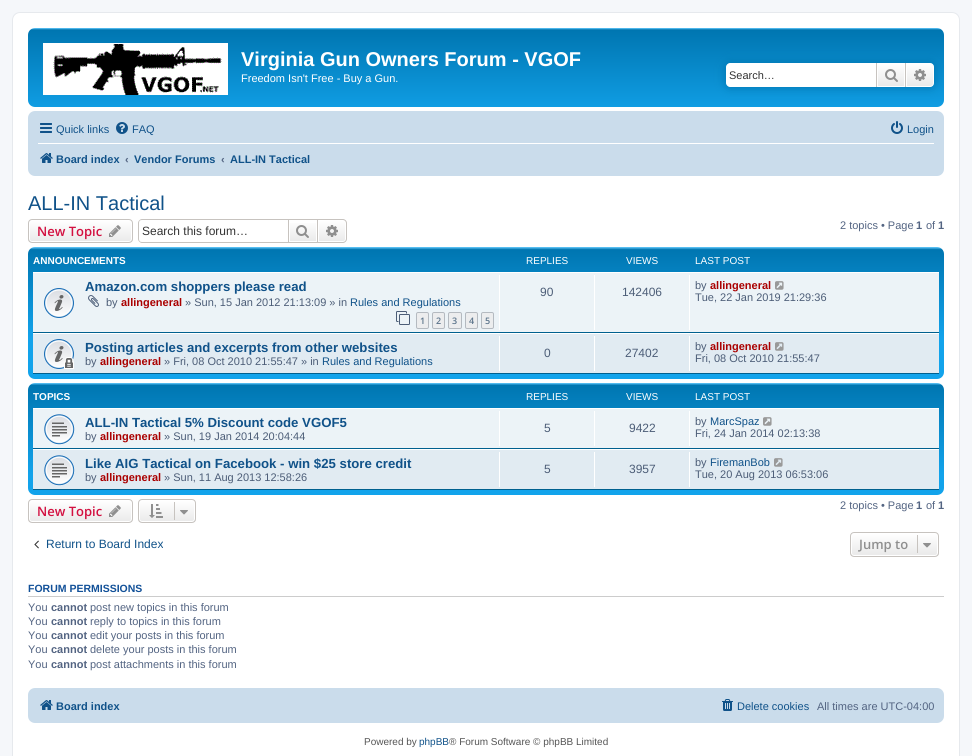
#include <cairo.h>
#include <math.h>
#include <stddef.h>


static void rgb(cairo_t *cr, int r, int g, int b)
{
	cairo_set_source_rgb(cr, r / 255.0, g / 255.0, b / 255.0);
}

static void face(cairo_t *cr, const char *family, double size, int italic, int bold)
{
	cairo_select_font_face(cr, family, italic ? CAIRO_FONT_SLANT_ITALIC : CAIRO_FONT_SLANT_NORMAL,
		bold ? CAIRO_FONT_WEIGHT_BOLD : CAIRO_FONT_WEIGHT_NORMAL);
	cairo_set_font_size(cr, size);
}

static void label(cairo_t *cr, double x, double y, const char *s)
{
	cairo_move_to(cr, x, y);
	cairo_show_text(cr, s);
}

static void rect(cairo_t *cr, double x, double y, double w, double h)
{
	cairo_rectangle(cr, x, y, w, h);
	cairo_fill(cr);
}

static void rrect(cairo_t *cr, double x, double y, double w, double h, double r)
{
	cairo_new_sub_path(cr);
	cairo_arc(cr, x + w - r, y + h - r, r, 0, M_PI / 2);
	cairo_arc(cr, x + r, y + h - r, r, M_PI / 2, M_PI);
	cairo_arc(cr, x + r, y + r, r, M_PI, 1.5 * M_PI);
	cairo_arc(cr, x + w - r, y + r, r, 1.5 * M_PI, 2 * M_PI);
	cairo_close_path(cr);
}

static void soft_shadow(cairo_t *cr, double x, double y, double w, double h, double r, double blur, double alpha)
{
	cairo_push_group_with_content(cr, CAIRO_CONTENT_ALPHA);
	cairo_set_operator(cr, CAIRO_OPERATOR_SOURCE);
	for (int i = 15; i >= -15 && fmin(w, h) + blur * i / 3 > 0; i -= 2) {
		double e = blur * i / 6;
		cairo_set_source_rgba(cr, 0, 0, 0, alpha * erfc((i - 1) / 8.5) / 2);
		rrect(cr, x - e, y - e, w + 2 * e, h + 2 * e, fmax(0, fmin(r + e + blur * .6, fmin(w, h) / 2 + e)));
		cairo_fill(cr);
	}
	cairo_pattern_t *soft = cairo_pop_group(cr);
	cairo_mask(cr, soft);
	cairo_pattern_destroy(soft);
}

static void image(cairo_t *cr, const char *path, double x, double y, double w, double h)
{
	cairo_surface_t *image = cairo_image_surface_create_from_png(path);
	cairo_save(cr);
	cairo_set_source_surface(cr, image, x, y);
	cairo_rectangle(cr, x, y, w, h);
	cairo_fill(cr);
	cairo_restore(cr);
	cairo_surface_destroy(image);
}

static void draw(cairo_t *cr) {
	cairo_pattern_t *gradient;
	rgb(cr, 245, 247, 250);
	cairo_paint(cr);
	rgb(cr, 255, 255, 255);
	rrect(cr, 12.5, 12.5, 947, 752, 7.5);
	cairo_fill_preserve(cr);
	rgb(cr, 230, 233, 237);
	cairo_set_line_width(cr, 1);
	cairo_stroke(cr);
	gradient = cairo_pattern_create_linear(486, 28, 486, 120);
	cairo_pattern_add_color_stop_rgba(gradient, 0, 0.416, 0.808, 1, 1);
	cairo_pattern_add_color_stop_rgba(gradient, 0.02, 0, 0.463, 0.694, 1);
	cairo_pattern_add_color_stop_rgba(gradient, 1, 0.071, 0.639, 0.922, 1);
	cairo_set_source(cr, gradient);
	cairo_pattern_destroy(gradient);
	rrect(cr, 28, 28, 916, 79, 7);
	cairo_fill(cr);
	image(cr, "image0.png", 43, 43, 185, 52);
	face(cr, "Liberation Sans", 20, 0, 1);
	rgb(cr, 255, 255, 255);
	label(cr, 241, 66, "Virginia Gun Owners Forum - VGOF");
	face(cr, "Liberation Sans", 11, 0, 0);
	label(cr, 241, 82, "Freedom Isn't Free - Buy a Gun.");
	rgb(cr, 0, 117, 176);
	soft_shadow(cr, 726, 63, 208, 24, 4, 5, 1);
	rgb(cr, 255, 255, 255);
	cairo_new_path(cr);
	cairo_move_to(cr, 730, 63);
	cairo_line_to(cr, 876, 63);
	cairo_line_to(cr, 876, 87);
	cairo_line_to(cr, 730, 87);
	cairo_curve_to(cr, 728, 87, 726, 85, 726, 83);
	cairo_line_to(cr, 726, 67);
	cairo_curve_to(cr, 726, 65, 728, 63, 730, 63);
	cairo_close_path(cr);
	cairo_fill(cr);
	rgb(cr, 51, 51, 51);
	label(cr, 729, 79, "Search…");
	gradient = cairo_pattern_create_linear(891, 63, 891, 87);
	cairo_pattern_add_color_stop_rgba(gradient, 0, 1, 1, 1, 1);
	cairo_pattern_add_color_stop_rgba(gradient, 1, 0.914, 0.914, 0.914, 1);
	cairo_set_source(cr, gradient);
	cairo_pattern_destroy(gradient);
	rect(cr, 878, 64, 26, 22);
	cairo_rectangle(cr, 877.5, 63.5, 27, 23);
	rgb(cr, 255, 255, 255);
	cairo_stroke(cr);
	rgb(cr, 199, 195, 191);
	rect(cr, 905, 63, 1, 24);
	rect(cr, 876, 63, 1, 24);
	image(cr, "image1.png", 885, 69, 13, 13);
	gradient = cairo_pattern_create_linear(920, 63, 920, 87);
	cairo_pattern_add_color_stop_rgba(gradient, 0, 1, 1, 1, 1);
	cairo_pattern_add_color_stop_rgba(gradient, 1, 0.914, 0.914, 0.914, 1);
	cairo_set_source(cr, gradient);
	cairo_pattern_destroy(gradient);
	cairo_new_path(cr);
	cairo_move_to(cr, 906.5, 63.5);
	cairo_line_to(cr, 930, 63.5);
	cairo_curve_to(cr, 932, 63.5, 933.5, 65, 933.5, 67);
	cairo_line_to(cr, 933.5, 83);
	cairo_curve_to(cr, 933.5, 85, 932, 86.5, 930, 86.5);
	cairo_line_to(cr, 906.5, 86.5);
	cairo_close_path(cr);
	cairo_fill_preserve(cr);
	rgb(cr, 255, 255, 255);
	cairo_stroke(cr);
	image(cr, "image2.png", 914, 69, 12, 12);
	rgb(cr, 202, 220, 235);
	rrect(cr, 28, 111, 916, 65, 7);
	cairo_fill(cr);
	image(cr, "image3.png", 40, 123, 12, 10);
	rgb(cr, 16, 82, 137);
	label(cr, 56, 133, "Quick links");
	image(cr, "image4.png", 116, 122, 12, 12);
	label(cr, 132, 133, "FAQ");
	image(cr, "image5.png", 891, 121, 12, 13);
	label(cr, 907, 133, "Login");
	rgb(cr, 255, 255, 255);
	rect(cr, 38, 143, 896, 1);
	image(cr, "image6.png", 40, 153, 13, 10);
	face(cr, "Liberation Sans", 11, 0, 1);
	rgb(cr, 16, 82, 137);
	label(cr, 56, 163, "Board index");
	rgb(cr, 83, 100, 130);
	label(cr, 125, 163, "‹");
	rgb(cr, 16, 82, 137);
	label(cr, 134, 163, "Vendor Forums");
	rgb(cr, 83, 100, 130);
	label(cr, 221, 163, "‹");
	rgb(cr, 16, 82, 137);
	label(cr, 230, 163, "ALL-IN Tactical");
	face(cr, "Liberation Sans", 20, 0, 0);
	label(cr, 28, 210, "ALL-IN Tactical");
	cairo_save(cr);
	rrect(cr, 28, 219, 105, 24, 4);
	cairo_clip(cr);
	gradient = cairo_pattern_create_linear(81, 220, 81, 242);
	cairo_pattern_add_color_stop_rgba(gradient, 0, 1, 1, 1, 1);
	cairo_pattern_add_color_stop_rgba(gradient, 1, 0.914, 0.914, 0.914, 1);
	cairo_set_source(cr, gradient);
	cairo_pattern_destroy(gradient);
	rect(cr, 28, 220, 105, 22);
	cairo_restore(cr);
	rrect(cr, 29.5, 220.5, 102, 21, 2.5);
	rgb(cr, 255, 255, 255);
	cairo_stroke(cr);
	rrect(cr, 28.5, 219.5, 104, 23, 3.5);
	rgb(cr, 199, 195, 191);
	cairo_stroke(cr);
	face(cr, "Open Sans SemiBold", 13, 0, 0);
	rgb(cr, 211, 17, 65);
	label(cr, 37, 236, "New Topic");
	image(cr, "image7.png", 109, 225, 12, 12);
	rgb(cr, 199, 195, 191);
	cairo_set_fill_rule(cr, CAIRO_FILL_RULE_EVEN_ODD);
	cairo_new_path(cr);
	cairo_move_to(cr, 142, 219);
	cairo_line_to(cr, 288, 219);
	cairo_line_to(cr, 288, 243);
	cairo_line_to(cr, 142, 243);
	cairo_curve_to(cr, 140, 243, 138, 241, 138, 239);
	cairo_line_to(cr, 138, 223);
	cairo_curve_to(cr, 138, 221, 140, 219, 142, 219);
	cairo_close_path(cr);
	cairo_move_to(cr, 142, 220);
	cairo_line_to(cr, 288, 220);
	cairo_line_to(cr, 288, 242);
	cairo_line_to(cr, 142, 242);
	cairo_curve_to(cr, 140, 242, 139, 241, 139, 239);
	cairo_line_to(cr, 139, 223);
	cairo_curve_to(cr, 139, 221, 140, 220, 142, 220);
	cairo_close_path(cr);
	cairo_fill(cr);
	face(cr, "Liberation Sans", 12, 0, 0);
	rgb(cr, 51, 51, 51);
	label(cr, 142, 235, "Search this forum…");
	gradient = cairo_pattern_create_linear(303, 220, 303, 242);
	cairo_pattern_add_color_stop_rgba(gradient, 0, 1, 1, 1, 1);
	cairo_pattern_add_color_stop_rgba(gradient, 1, 0.914, 0.914, 0.914, 1);
	cairo_set_source(cr, gradient);
	cairo_pattern_destroy(gradient);
	rect(cr, 290, 223, 26, 18);
	cairo_rectangle(cr, 288.5, 219.5, 29, 23);
	rgb(cr, 199, 195, 191);
	cairo_stroke(cr);
	image(cr, "image8.png", 296, 225, 13, 13);
	gradient = cairo_pattern_create_linear(332, 220, 332, 242);
	cairo_pattern_add_color_stop_rgba(gradient, 0, 1, 1, 1, 1);
	cairo_pattern_add_color_stop_rgba(gradient, 1, 0.914, 0.914, 0.914, 1);
	cairo_set_source(cr, gradient);
	cairo_pattern_destroy(gradient);
	cairo_new_path(cr);
	cairo_move_to(cr, 318.5, 220.5);
	cairo_line_to(cr, 343, 220.5);
	cairo_curve_to(cr, 344.5, 220.5, 345.5, 221.5, 345.5, 223);
	cairo_line_to(cr, 345.5, 239);
	cairo_curve_to(cr, 345.5, 240.5, 344.5, 241.5, 343, 241.5);
	cairo_line_to(cr, 318.5, 241.5);
	cairo_close_path(cr);
	cairo_fill_preserve(cr);
	rgb(cr, 255, 255, 255);
	cairo_stroke(cr);
	rgb(cr, 199, 195, 191);
	cairo_new_path(cr);
	cairo_move_to(cr, 318, 219);
	cairo_line_to(cr, 343, 219);
	cairo_curve_to(cr, 345, 219, 347, 221, 347, 223);
	cairo_line_to(cr, 347, 239);
	cairo_curve_to(cr, 347, 241, 345, 243, 343, 243);
	cairo_line_to(cr, 318, 243);
	cairo_close_path(cr);
	cairo_move_to(cr, 318, 220);
	cairo_line_to(cr, 343, 220);
	cairo_curve_to(cr, 344.5, 220, 346, 221.5, 346, 223);
	cairo_line_to(cr, 346, 239);
	cairo_curve_to(cr, 346, 240.5, 344.5, 242, 343, 242);
	cairo_line_to(cr, 318, 242);
	cairo_close_path(cr);
	cairo_fill(cr);
	image(cr, "image9.png", 326, 225, 12, 12);
	face(cr, "Liberation Sans", 11, 0, 0);
	rgb(cr, 83, 100, 130);
	label(cr, 840, 229, "2 topics • Page");
	face(cr, "Liberation Sans", 11, 0, 1);
	label(cr, 916, 229, "1");
	face(cr, "Liberation Sans", 11, 0, 0);
	label(cr, 926, 229, "of");
	face(cr, "Liberation Sans", 11, 0, 1);
	label(cr, 938, 229, "1");
	gradient = cairo_pattern_create_linear(486, 247, 486, 379);
	cairo_pattern_add_color_stop_rgba(gradient, 0, 0.416, 0.808, 1, 1);
	cairo_pattern_add_color_stop_rgba(gradient, 0.02, 0, 0.463, 0.694, 1);
	cairo_pattern_add_color_stop_rgba(gradient, 0.7, 0.071, 0.639, 0.922, 1);
	cairo_pattern_add_color_stop_rgba(gradient, 1, 0.071, 0.639, 0.922, 1);
	cairo_set_source(cr, gradient);
	cairo_pattern_destroy(gradient);
	rrect(cr, 28, 247, 916, 132, 7);
	cairo_fill(cr);
	face(cr, "Liberation Sans", 10, 0, 1);
	rgb(cr, 255, 255, 255);
	label(cr, 33, 264, "ANNOUNCEMENTS");
	face(cr, "Liberation Sans", 10, 0, 0);
	label(cr, 526, 264, "REPLIES");
	label(cr, 626, 264, "VIEWS");
	label(cr, 695, 264, "LAST POST");
	rgb(cr, 236, 243, 247);
	rect(cr, 33, 273, 906, 59);
	rgb(cr, 255, 255, 255);
	rect(cr, 33, 272, 906, 1);
	rgb(cr, 0, 96, 143);
	rect(cr, 33, 332, 906, 1);
	image(cr, "image10.png", 44, 288, 30, 30);
	face(cr, "Liberation Sans", 13.2, 0, 1);
	rgb(cr, 16, 82, 137);
	label(cr, 85, 291, "Amazon.com shoppers please read");
	image(cr, "image11.png", 88, 295, 11, 12);
	face(cr, "Liberation Sans", 11, 0, 0);
	rgb(cr, 76, 93, 119);
	label(cr, 106, 306, "by");
	face(cr, "Liberation Sans", 11, 0, 1);
	rgb(cr, 170, 0, 0);
	label(cr, 121, 306, "allingeneral");
	face(cr, "Liberation Sans", 11, 0, 0);
	rgb(cr, 76, 93, 119);
	label(cr, 185, 306, "» Sun, 15 Jan 2012 21:13:09 » in");
	rgb(cr, 16, 82, 137);
	label(cr, 350, 306, "Rules and Regulations");
	image(cr, "image12.png", 396, 311, 14, 14);
	rgb(cr, 236, 237, 238);
	rrect(cr, 416.5, 312.5, 12, 16, 1.5);
	cairo_fill_preserve(cr);
	rgb(cr, 180, 186, 192);
	cairo_stroke(cr);
	face(cr, "Open Sans SemiBold", 9, 0, 0);
	rgb(cr, 92, 117, 140);
	label(cr, 420, 324, "1");
	rgb(cr, 236, 237, 238);
	rrect(cr, 432.5, 312.5, 12, 16, 1.5);
	cairo_fill_preserve(cr);
	rgb(cr, 180, 186, 192);
	cairo_stroke(cr);
	rgb(cr, 92, 117, 140);
	label(cr, 436, 324, "2");
	rgb(cr, 236, 237, 238);
	rrect(cr, 448.5, 312.5, 13, 16, 1.5);
	cairo_fill_preserve(cr);
	rgb(cr, 180, 186, 192);
	cairo_stroke(cr);
	rgb(cr, 92, 117, 140);
	label(cr, 452, 324, "3");
	rgb(cr, 236, 237, 238);
	rrect(cr, 465.5, 312.5, 12, 16, 1.5);
	cairo_fill_preserve(cr);
	rgb(cr, 180, 186, 192);
	cairo_stroke(cr);
	rgb(cr, 92, 117, 140);
	label(cr, 469, 324, "4");
	rgb(cr, 236, 237, 238);
	rrect(cr, 481.5, 312.5, 12, 16, 1.5);
	cairo_fill_preserve(cr);
	rgb(cr, 180, 186, 192);
	cairo_stroke(cr);
	rgb(cr, 92, 117, 140);
	label(cr, 485, 324, "5");
	rgb(cr, 255, 255, 255);
	rect(cr, 499, 275, 1, 55);
	face(cr, "Liberation Sans", 12, 0, 0);
	rgb(cr, 76, 93, 119);
	label(cr, 540, 296, "90");
	rgb(cr, 255, 255, 255);
	rect(cr, 594, 275, 1, 55);
	rgb(cr, 76, 93, 119);
	label(cr, 622, 296, "142406");
	rgb(cr, 255, 255, 255);
	rect(cr, 689, 275, 1, 55);
	face(cr, "Liberation Sans", 11, 0, 0);
	rgb(cr, 76, 93, 119);
	label(cr, 695, 289, "by");
	face(cr, "Liberation Sans", 11, 0, 1);
	rgb(cr, 170, 0, 0);
	label(cr, 710, 289, "allingeneral");
	image(cr, "image13.png", 775, 281, 9, 9);
	face(cr, "Liberation Sans", 11, 0, 0);
	rgb(cr, 76, 93, 119);
	label(cr, 695, 301, "Tue, 22 Jan 2019 21:29:36");
	rgb(cr, 225, 235, 242);
	rect(cr, 33, 334, 906, 39);
	rgb(cr, 255, 255, 255);
	rect(cr, 33, 333, 906, 1);
	rgb(cr, 0, 96, 143);
	rect(cr, 33, 373, 906, 1);
	image(cr, "image14.png", 44, 339, 30, 30);
	face(cr, "Liberation Sans", 13.2, 0, 1);
	rgb(cr, 16, 82, 137);
	label(cr, 85, 352, "Posting articles and excerpts from other websites");
	face(cr, "Liberation Sans", 11, 0, 0);
	rgb(cr, 76, 93, 119);
	label(cr, 85, 365, "by");
	face(cr, "Liberation Sans", 11, 0, 1);
	rgb(cr, 170, 0, 0);
	label(cr, 100, 365, "allingeneral");
	face(cr, "Liberation Sans", 11, 0, 0);
	rgb(cr, 76, 93, 119);
	label(cr, 164, 365, "» Fri, 08 Oct 2010 21:55:47 » in");
	rgb(cr, 16, 82, 137);
	label(cr, 322, 365, "Rules and Regulations");
	rgb(cr, 255, 255, 255);
	rect(cr, 499, 336, 1, 35);
	face(cr, "Liberation Sans", 12, 0, 0);
	rgb(cr, 76, 93, 119);
	label(cr, 544, 357, "0");
	rgb(cr, 255, 255, 255);
	rect(cr, 594, 336, 1, 35);
	rgb(cr, 76, 93, 119);
	label(cr, 625, 357, "27402");
	rgb(cr, 255, 255, 255);
	rect(cr, 689, 336, 1, 35);
	face(cr, "Liberation Sans", 11, 0, 0);
	rgb(cr, 76, 93, 119);
	label(cr, 695, 350, "by");
	face(cr, "Liberation Sans", 11, 0, 1);
	rgb(cr, 170, 0, 0);
	label(cr, 710, 350, "allingeneral");
	image(cr, "image15.png", 775, 342, 9, 9);
	face(cr, "Liberation Sans", 11, 0, 0);
	rgb(cr, 76, 93, 119);
	label(cr, 695, 362, "Fri, 08 Oct 2010 21:55:47");
	gradient = cairo_pattern_create_linear(486, 383, 486, 495);
	cairo_pattern_add_color_stop_rgba(gradient, 0, 0.416, 0.808, 1, 1);
	cairo_pattern_add_color_stop_rgba(gradient, 0.02, 0, 0.463, 0.694, 1);
	cairo_pattern_add_color_stop_rgba(gradient, 0.82, 0.071, 0.639, 0.922, 1);
	cairo_pattern_add_color_stop_rgba(gradient, 1, 0.071, 0.639, 0.922, 1);
	cairo_set_source(cr, gradient);
	cairo_pattern_destroy(gradient);
	rrect(cr, 28, 383, 916, 112, 7);
	cairo_fill(cr);
	face(cr, "Liberation Sans", 10, 0, 1);
	rgb(cr, 255, 255, 255);
	label(cr, 33, 400, "TOPICS");
	face(cr, "Liberation Sans", 10, 0, 0);
	label(cr, 526, 400, "REPLIES");
	label(cr, 626, 400, "VIEWS");
	label(cr, 695, 400, "LAST POST");
	rgb(cr, 236, 243, 247);
	rect(cr, 33, 409, 906, 39);
	rgb(cr, 255, 255, 255);
	rect(cr, 33, 408, 906, 1);
	rgb(cr, 0, 96, 143);
	rect(cr, 33, 448, 906, 1);
	image(cr, "image16.png", 44, 414, 31, 31);
	face(cr, "Liberation Sans", 13.2, 0, 1);
	rgb(cr, 16, 82, 137);
	label(cr, 85, 427, "ALL-IN Tactical 5% Discount code VGOF5");
	face(cr, "Liberation Sans", 11, 0, 0);
	rgb(cr, 76, 93, 119);
	label(cr, 85, 440, "by");
	face(cr, "Liberation Sans", 11, 0, 1);
	rgb(cr, 170, 0, 0);
	label(cr, 100, 440, "allingeneral");
	face(cr, "Liberation Sans", 11, 0, 0);
	rgb(cr, 76, 93, 119);
	label(cr, 164, 440, "» Sun, 19 Jan 2014 20:04:44");
	rgb(cr, 255, 255, 255);
	rect(cr, 499, 411, 1, 35);
	face(cr, "Liberation Sans", 12, 0, 0);
	rgb(cr, 76, 93, 119);
	label(cr, 544, 432, "5");
	rgb(cr, 255, 255, 255);
	rect(cr, 594, 411, 1, 35);
	rgb(cr, 76, 93, 119);
	label(cr, 629, 432, "9422");
	rgb(cr, 255, 255, 255);
	rect(cr, 689, 411, 1, 35);
	face(cr, "Liberation Sans", 11, 0, 0);
	rgb(cr, 76, 93, 119);
	label(cr, 695, 425, "by");
	rgb(cr, 16, 82, 137);
	label(cr, 710, 425, "MarcSpaz");
	image(cr, "image13.png", 763, 417, 9, 9);
	rgb(cr, 76, 93, 119);
	label(cr, 695, 437, "Fri, 24 Jan 2014 02:13:38");
	rgb(cr, 225, 235, 242);
	rect(cr, 33, 450, 906, 39);
	rgb(cr, 255, 255, 255);
	rect(cr, 33, 449, 906, 1);
	rgb(cr, 0, 96, 143);
	rect(cr, 33, 489, 906, 1);
	image(cr, "image17.png", 44, 455, 31, 31);
	face(cr, "Liberation Sans", 13.2, 0, 1);
	rgb(cr, 16, 82, 137);
	label(cr, 85, 468, "Like AIG Tactical on Facebook - win $25 store credit");
	face(cr, "Liberation Sans", 11, 0, 0);
	rgb(cr, 76, 93, 119);
	label(cr, 85, 481, "by");
	face(cr, "Liberation Sans", 11, 0, 1);
	rgb(cr, 170, 0, 0);
	label(cr, 100, 481, "allingeneral");
	face(cr, "Liberation Sans", 11, 0, 0);
	rgb(cr, 76, 93, 119);
	label(cr, 164, 481, "» Sun, 11 Aug 2013 12:58:26");
	rgb(cr, 255, 255, 255);
	rect(cr, 499, 452, 1, 35);
	face(cr, "Liberation Sans", 12, 0, 0);
	rgb(cr, 76, 93, 119);
	label(cr, 544, 473, "5");
	rgb(cr, 255, 255, 255);
	rect(cr, 594, 452, 1, 35);
	rgb(cr, 76, 93, 119);
	label(cr, 629, 473, "3957");
	rgb(cr, 255, 255, 255);
	rect(cr, 689, 452, 1, 35);
	face(cr, "Liberation Sans", 11, 0, 0);
	rgb(cr, 76, 93, 119);
	label(cr, 695, 466, "by");
	rgb(cr, 16, 82, 137);
	label(cr, 710, 466, "FiremanBob");
	image(cr, "image15.png", 774, 458, 9, 9);
	rgb(cr, 76, 93, 119);
	label(cr, 695, 478, "Tue, 20 Aug 2013 06:53:06");
	cairo_save(cr);
	cairo_set_fill_rule(cr, CAIRO_FILL_RULE_WINDING);
	rrect(cr, 28, 499, 105, 24, 4);
	cairo_clip(cr);
	gradient = cairo_pattern_create_linear(81, 500, 81, 522);
	cairo_pattern_add_color_stop_rgba(gradient, 0, 1, 1, 1, 1);
	cairo_pattern_add_color_stop_rgba(gradient, 1, 0.914, 0.914, 0.914, 1);
	cairo_set_source(cr, gradient);
	cairo_pattern_destroy(gradient);
	rect(cr, 28, 500, 105, 22);
	cairo_restore(cr);
	rrect(cr, 29.5, 500.5, 102, 21, 2.5);
	rgb(cr, 255, 255, 255);
	cairo_stroke(cr);
	rrect(cr, 28.5, 499.5, 104, 23, 3.5);
	rgb(cr, 199, 195, 191);
	cairo_stroke(cr);
	face(cr, "Open Sans SemiBold", 13, 0, 0);
	rgb(cr, 211, 17, 65);
	label(cr, 37, 516, "New Topic");
	image(cr, "image7.png", 109, 505, 12, 12);
	cairo_save(cr);
	cairo_set_fill_rule(cr, CAIRO_FILL_RULE_WINDING);
	rrect(cr, 138, 499, 58, 24, 4);
	cairo_clip(cr);
	gradient = cairo_pattern_create_linear(167, 500, 167, 522);
	cairo_pattern_add_color_stop_rgba(gradient, 0, 1, 1, 1, 1);
	cairo_pattern_add_color_stop_rgba(gradient, 1, 0.914, 0.914, 0.914, 1);
	cairo_set_source(cr, gradient);
	cairo_pattern_destroy(gradient);
	rect(cr, 138, 500, 58, 22);
	cairo_restore(cr);
	rrect(cr, 139.5, 500.5, 55, 21, 2.5);
	rgb(cr, 255, 255, 255);
	cairo_stroke(cr);
	rrect(cr, 138.5, 499.5, 57, 23, 3.5);
	rgb(cr, 199, 195, 191);
	cairo_stroke(cr);
	image(cr, "image18.png", 149, 504, 14, 14);
	rect(cr, 174, 502, 1, 18);
	image(cr, "image19.png", 180, 510, 8, 5);
	face(cr, "Liberation Sans", 11, 0, 0);
	rgb(cr, 83, 100, 130);
	label(cr, 840, 509, "2 topics • Page");
	face(cr, "Liberation Sans", 11, 0, 1);
	label(cr, 916, 509, "1");
	face(cr, "Liberation Sans", 11, 0, 0);
	label(cr, 926, 509, "of");
	face(cr, "Liberation Sans", 11, 0, 1);
	label(cr, 938, 509, "1");
	image(cr, "image20.png", 34, 540, 5, 9);
	face(cr, "Liberation Sans", 12, 0, 0);
	rgb(cr, 16, 82, 137);
	label(cr, 46, 548, "Return to Board Index");
	cairo_save(cr);
	cairo_set_fill_rule(cr, CAIRO_FILL_RULE_WINDING);
	rrect(cr, 850, 532, 89, 25, 4);
	cairo_clip(cr);
	gradient = cairo_pattern_create_linear(895, 533, 895, 556);
	cairo_pattern_add_color_stop_rgba(gradient, 0, 1, 1, 1, 1);
	cairo_pattern_add_color_stop_rgba(gradient, 1, 0.914, 0.914, 0.914, 1);
	cairo_set_source(cr, gradient);
	cairo_pattern_destroy(gradient);
	rect(cr, 850, 533, 89, 23);
	cairo_restore(cr);
	rrect(cr, 851.5, 533.5, 86, 22, 2.5);
	rgb(cr, 255, 255, 255);
	cairo_stroke(cr);
	rrect(cr, 850.5, 532.5, 88, 24, 3.5);
	rgb(cr, 199, 195, 191);
	cairo_stroke(cr);
	face(cr, "Open Sans SemiBold", 13, 0, 0);
	rgb(cr, 143, 143, 143);
	label(cr, 859, 549, "Jump to");
	rgb(cr, 199, 195, 191);
	rect(cr, 917, 535, 1, 18);
	image(cr, "image19.png", 923, 543, 8, 5);
	rgb(cr, 204, 204, 204);
	rect(cr, 28, 596, 916, 1);
	face(cr, "Liberation Sans", 10.5, 0, 1);
	rgb(cr, 17, 80, 152);
	label(cr, 28, 592, "FORUM PERMISSIONS");
	face(cr, "Liberation Sans", 11, 0, 0);
	rgb(cr, 83, 100, 130);
	label(cr, 28, 611, "You");
	face(cr, "Liberation Sans", 11, 0, 1);
	label(cr, 51, 611, "cannot");
	face(cr, "Liberation Sans", 11, 0, 0);
	label(cr, 90, 611, "post new topics in this forum");
	label(cr, 28, 625, "You");
	face(cr, "Liberation Sans", 11, 0, 1);
	label(cr, 51, 625, "cannot");
	face(cr, "Liberation Sans", 11, 0, 0);
	label(cr, 90, 625, "reply to topics in this forum");
	label(cr, 28, 639, "You");
	face(cr, "Liberation Sans", 11, 0, 1);
	label(cr, 51, 639, "cannot");
	face(cr, "Liberation Sans", 11, 0, 0);
	label(cr, 90, 639, "edit your posts in this forum");
	label(cr, 28, 653, "You");
	face(cr, "Liberation Sans", 11, 0, 1);
	label(cr, 51, 653, "cannot");
	face(cr, "Liberation Sans", 11, 0, 0);
	label(cr, 90, 653, "delete your posts in this forum");
	label(cr, 28, 668, "You");
	face(cr, "Liberation Sans", 11, 0, 1);
	label(cr, 51, 668, "cannot");
	face(cr, "Liberation Sans", 11, 0, 0);
	label(cr, 90, 668, "post attachments in this forum");
	rgb(cr, 202, 220, 235);
	rrect(cr, 28, 688, 916, 35, 7);
	cairo_fill(cr);
	image(cr, "image6.png", 40, 700, 13, 10);
	face(cr, "Liberation Sans", 11, 0, 1);
	rgb(cr, 16, 82, 137);
	label(cr, 56, 710, "Board index");
	image(cr, "image21.png", 722, 699, 11, 12);
	face(cr, "Liberation Sans", 11, 0, 0);
	label(cr, 737, 710, "Delete cookies");
	rgb(cr, 83, 100, 130);
	label(cr, 817, 710, "All times are UTC-04:00");
	face(cr, "Liberation Sans", 10, 0, 0);
	rgb(cr, 85, 85, 85);
	label(cr, 364, 745, "Powered by");
	rgb(cr, 16, 82, 137);
	label(cr, 419, 745, "phpBB");
	rgb(cr, 85, 85, 85);
	label(cr, 449, 745, "® Forum Software © phpBB Limited");
}

int main(void) {
	cairo_surface_t *surface = cairo_image_surface_create(CAIRO_FORMAT_RGB24, 972, 756);
	cairo_t *cr = cairo_create(surface);
	cairo_font_options_t *options = cairo_font_options_create();
	cairo_font_options_set_hint_metrics(options, CAIRO_HINT_METRICS_OFF);
	cairo_font_options_set_hint_style(options, CAIRO_HINT_STYLE_NONE);
	cairo_set_font_options(cr, options);
	cairo_set_miter_limit(cr, 4);
	draw(cr);
	cairo_surface_write_to_png(surface, "render.png");
	cairo_font_options_destroy(options);
	cairo_destroy(cr);
	cairo_surface_destroy(surface);
	return 0;
}
